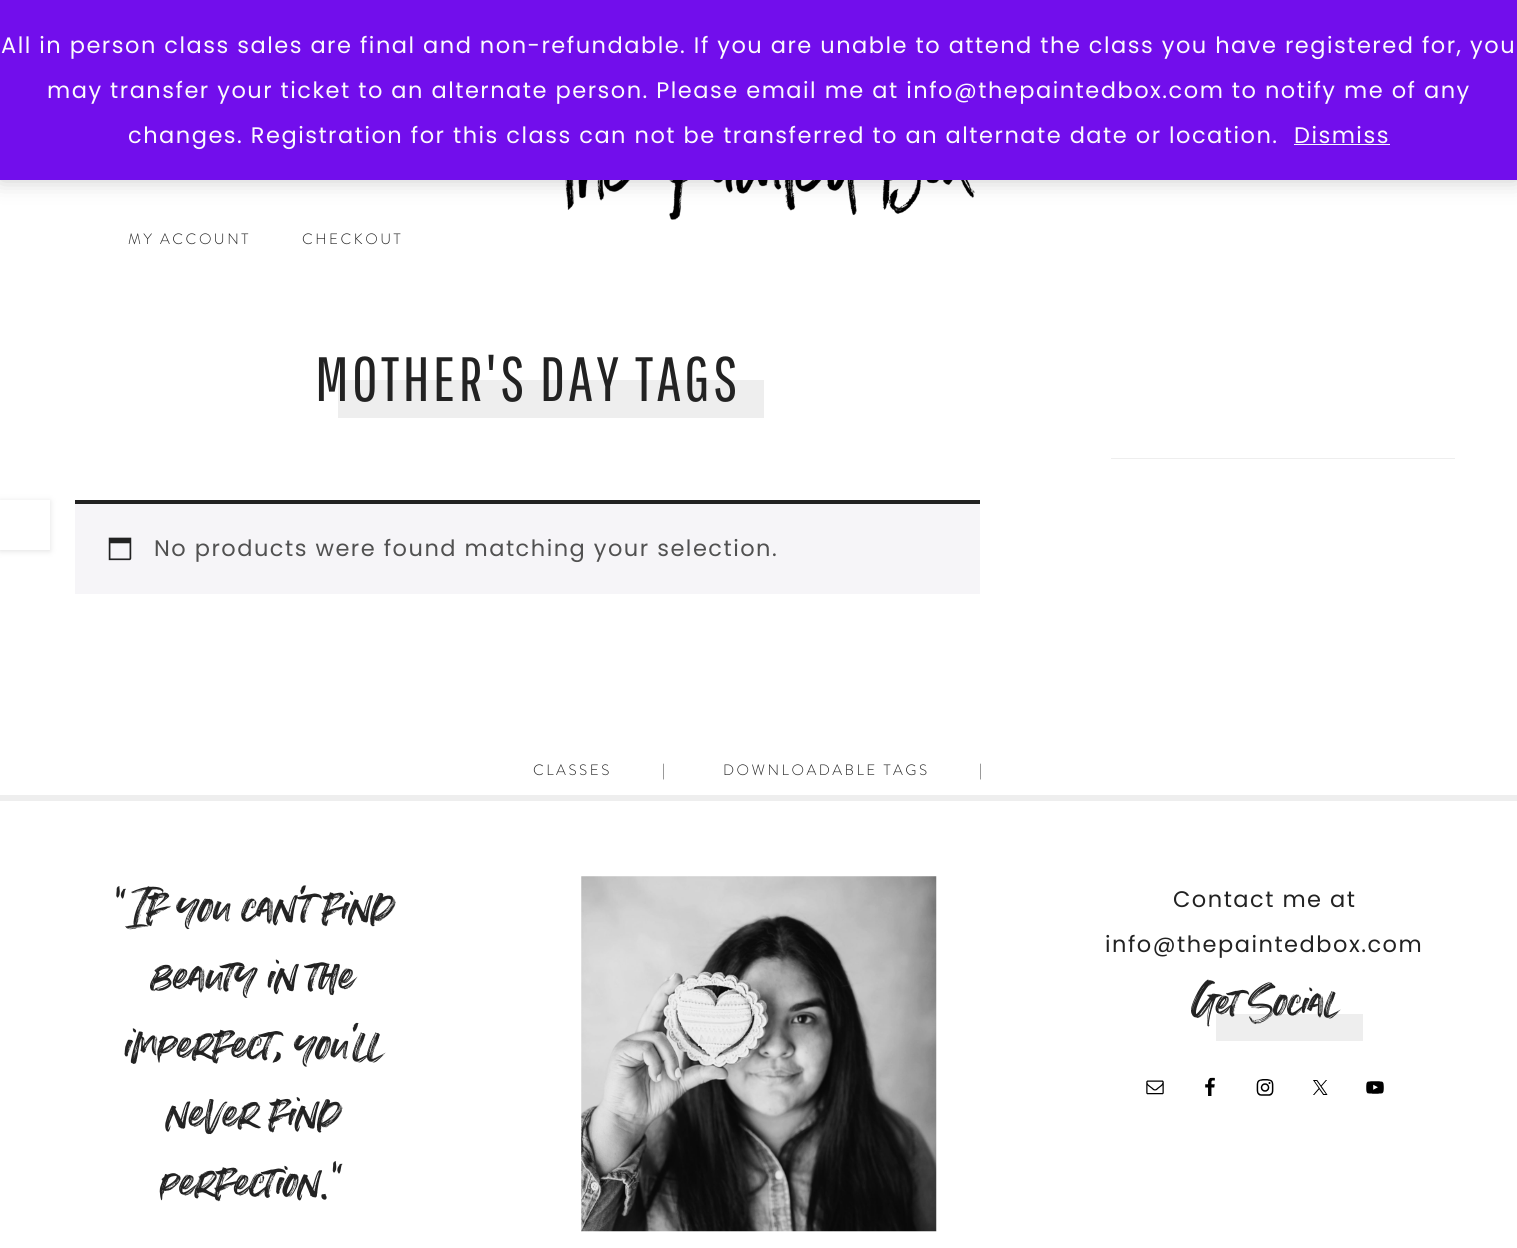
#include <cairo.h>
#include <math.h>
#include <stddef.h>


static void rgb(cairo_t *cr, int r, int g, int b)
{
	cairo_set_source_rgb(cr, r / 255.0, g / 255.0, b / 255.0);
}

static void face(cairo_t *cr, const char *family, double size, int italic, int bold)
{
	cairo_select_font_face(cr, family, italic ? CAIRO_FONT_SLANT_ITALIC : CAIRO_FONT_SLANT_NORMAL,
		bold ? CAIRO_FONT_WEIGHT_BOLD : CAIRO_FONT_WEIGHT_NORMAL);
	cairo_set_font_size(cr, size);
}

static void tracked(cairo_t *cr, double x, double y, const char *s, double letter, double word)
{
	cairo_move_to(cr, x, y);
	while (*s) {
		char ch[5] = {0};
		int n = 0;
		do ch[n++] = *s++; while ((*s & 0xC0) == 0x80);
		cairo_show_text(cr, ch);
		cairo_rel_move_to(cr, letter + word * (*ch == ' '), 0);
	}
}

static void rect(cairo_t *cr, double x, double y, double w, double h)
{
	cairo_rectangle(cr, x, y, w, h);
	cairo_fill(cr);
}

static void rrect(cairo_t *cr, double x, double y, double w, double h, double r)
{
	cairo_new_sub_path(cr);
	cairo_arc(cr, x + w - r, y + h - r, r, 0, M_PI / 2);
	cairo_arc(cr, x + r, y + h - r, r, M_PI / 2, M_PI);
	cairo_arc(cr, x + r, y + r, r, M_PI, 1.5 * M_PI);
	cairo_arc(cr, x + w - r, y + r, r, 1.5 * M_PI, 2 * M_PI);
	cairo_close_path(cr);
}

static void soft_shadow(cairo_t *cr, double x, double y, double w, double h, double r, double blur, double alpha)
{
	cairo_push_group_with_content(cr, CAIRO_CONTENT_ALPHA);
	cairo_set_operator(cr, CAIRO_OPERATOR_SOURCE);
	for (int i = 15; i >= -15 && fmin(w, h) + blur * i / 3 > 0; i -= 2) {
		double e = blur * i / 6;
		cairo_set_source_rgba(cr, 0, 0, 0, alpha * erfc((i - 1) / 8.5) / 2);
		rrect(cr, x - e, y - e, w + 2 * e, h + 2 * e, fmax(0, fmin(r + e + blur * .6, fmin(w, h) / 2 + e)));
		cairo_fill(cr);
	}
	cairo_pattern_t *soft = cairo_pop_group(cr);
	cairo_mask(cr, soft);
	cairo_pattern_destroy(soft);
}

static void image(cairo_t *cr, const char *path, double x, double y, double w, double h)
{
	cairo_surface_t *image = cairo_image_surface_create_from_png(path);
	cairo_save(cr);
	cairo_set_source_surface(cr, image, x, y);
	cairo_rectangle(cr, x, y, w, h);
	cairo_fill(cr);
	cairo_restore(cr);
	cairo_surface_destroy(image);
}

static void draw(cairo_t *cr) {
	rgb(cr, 255, 255, 255);
	cairo_paint(cr);
	image(cr, "image0.png", 565, 180, 410, 40);
	rgb(cr, 0, 0, 0);
	soft_shadow(cr, 0, 1, 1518, 180, 0, 11, 0.2);
	rgb(cr, 114, 14, 236);
	rect(cr, 0, 0, 1517, 180);
	face(cr, "Poppins", 22.5, 0, 0);
	rgb(cr, 252, 251, 254);
	tracked(cr, 1, 53, "All in person class sales are final and non-refundable. If you are unable to attend the class you have registered for, you", 1.5, 0);
	tracked(cr, 47, 98, "may transfer your ticket to an alternate person. Please email me at info@thepaintedbox.com to notify me of any", 1.5, 0);
	tracked(cr, 128, 143, "changes. Registration for this class can not be transferred to an alternate date or location.", 1.5, 0);
	tracked(cr, 1294, 143, "Dismiss", 1.5, 0);
	rect(cr, 1294, 144, 96, 1);
	face(cr, "Brandon Grotesque Light", 15, 0, 0);
	rgb(cr, 34, 34, 34);
	tracked(cr, 128, 244, "MY ACCOUNT", 2.5, 0);
	tracked(cr, 302, 244, "CHECKOUT", 2.5, 0);
	cairo_save(cr);
	cairo_set_fill_rule(cr, CAIRO_FILL_RULE_EVEN_ODD);
	cairo_new_path(cr);
	cairo_move_to(cr, 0, 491);
	cairo_line_to(cr, 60, 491);
	cairo_line_to(cr, 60, 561);
	cairo_line_to(cr, 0, 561);
	cairo_close_path(cr);
	cairo_move_to(cr, 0, 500);
	cairo_line_to(cr, 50, 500);
	cairo_line_to(cr, 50, 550);
	cairo_line_to(cr, 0, 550);
	cairo_close_path(cr);
	cairo_clip(cr);
	rgb(cr, 190, 190, 190);
	soft_shadow(cr, 0, 501, 50, 50, 0, 3, 0.46);
	cairo_restore(cr);
	rgb(cr, 238, 238, 238);
	rect(cr, 338, 380, 426, 38);
	face(cr, "Pathway Gothic One", 62.5, 0, 0);
	rgb(cr, 34, 34, 34);
	tracked(cr, 315, 401, "MOTHER'S DAY TAGS", 3.1, 0);
	rgb(cr, 246, 245, 248);
	rect(cr, 75, 504, 905, 90);
	rgb(cr, 34, 34, 34);
	rect(cr, 75, 500, 905, 4);
	image(cr, "image1.png", 108, 537, 24, 24);
	face(cr, "Poppins", 22.5, 0, 0);
	rgb(cr, 81, 81, 81);
	tracked(cr, 154, 556, "No products were found matching your selection.", 1.5, 0);
	rgb(cr, 238, 238, 238);
	rect(cr, 1111, 458, 344, 1);
	face(cr, "Brandon Grotesque Light", 15, 0, 0);
	rgb(cr, 34, 34, 34);
	tracked(cr, 533, 775, "CLASSES", 2.5, 0);
	tracked(cr, 662, 775, "|", 2.5, 0);
	tracked(cr, 723, 775, "DOWNLOADABLE TAGS", 2.5, 0);
	tracked(cr, 979, 775, "|", 2.5, 0);
	rgb(cr, 238, 238, 238);
	rect(cr, 0, 795, 1517, 6);
	image(cr, "image2.png", 116, 885, 280, 45);
	image(cr, "image3.png", 150, 959, 208, 39);
	image(cr, "image4.png", 124, 1028, 160, 36);
	image(cr, "image5.png", 293, 1022, 93, 45);
	image(cr, "image6.png", 165, 1097, 178, 38);
	image(cr, "image7.png", 159, 1161, 184, 41);
	image(cr, "image8.png", 581, 876, 356, 356);
	face(cr, "Poppins", 22.5, 0, 0);
	rgb(cr, 34, 34, 34);
	tracked(cr, 1173, 907, "Contact me at", 1.5, 0);
	tracked(cr, 1105, 952, "info@thepaintedbox.com", 1.5, 0);
	rgb(cr, 238, 238, 238);
	rect(cr, 1216, 1014, 147, 27);
	image(cr, "image9.png", 1191, 979, 150, 48);
	image(cr, "image10.png", 1146, 1080, 18, 15);
	image(cr, "image11.png", 1205, 1077, 10, 19);
	image(cr, "image12.png", 1256, 1079, 18, 17);
	image(cr, "image13.png", 1313, 1080, 15, 15);
	image(cr, "image14.png", 1366, 1081, 18, 13);
}

int main(void) {
	cairo_surface_t *surface = cairo_image_surface_create(CAIRO_FORMAT_RGB24, 1517, 1248);
	cairo_t *cr = cairo_create(surface);
	cairo_font_options_t *options = cairo_font_options_create();
	cairo_font_options_set_hint_metrics(options, CAIRO_HINT_METRICS_OFF);
	cairo_font_options_set_hint_style(options, CAIRO_HINT_STYLE_NONE);
	cairo_set_font_options(cr, options);
	cairo_set_miter_limit(cr, 4);
	draw(cr);
	cairo_surface_write_to_png(surface, "render.png");
	cairo_font_options_destroy(options);
	cairo_destroy(cr);
	cairo_surface_destroy(surface);
	return 0;
}
